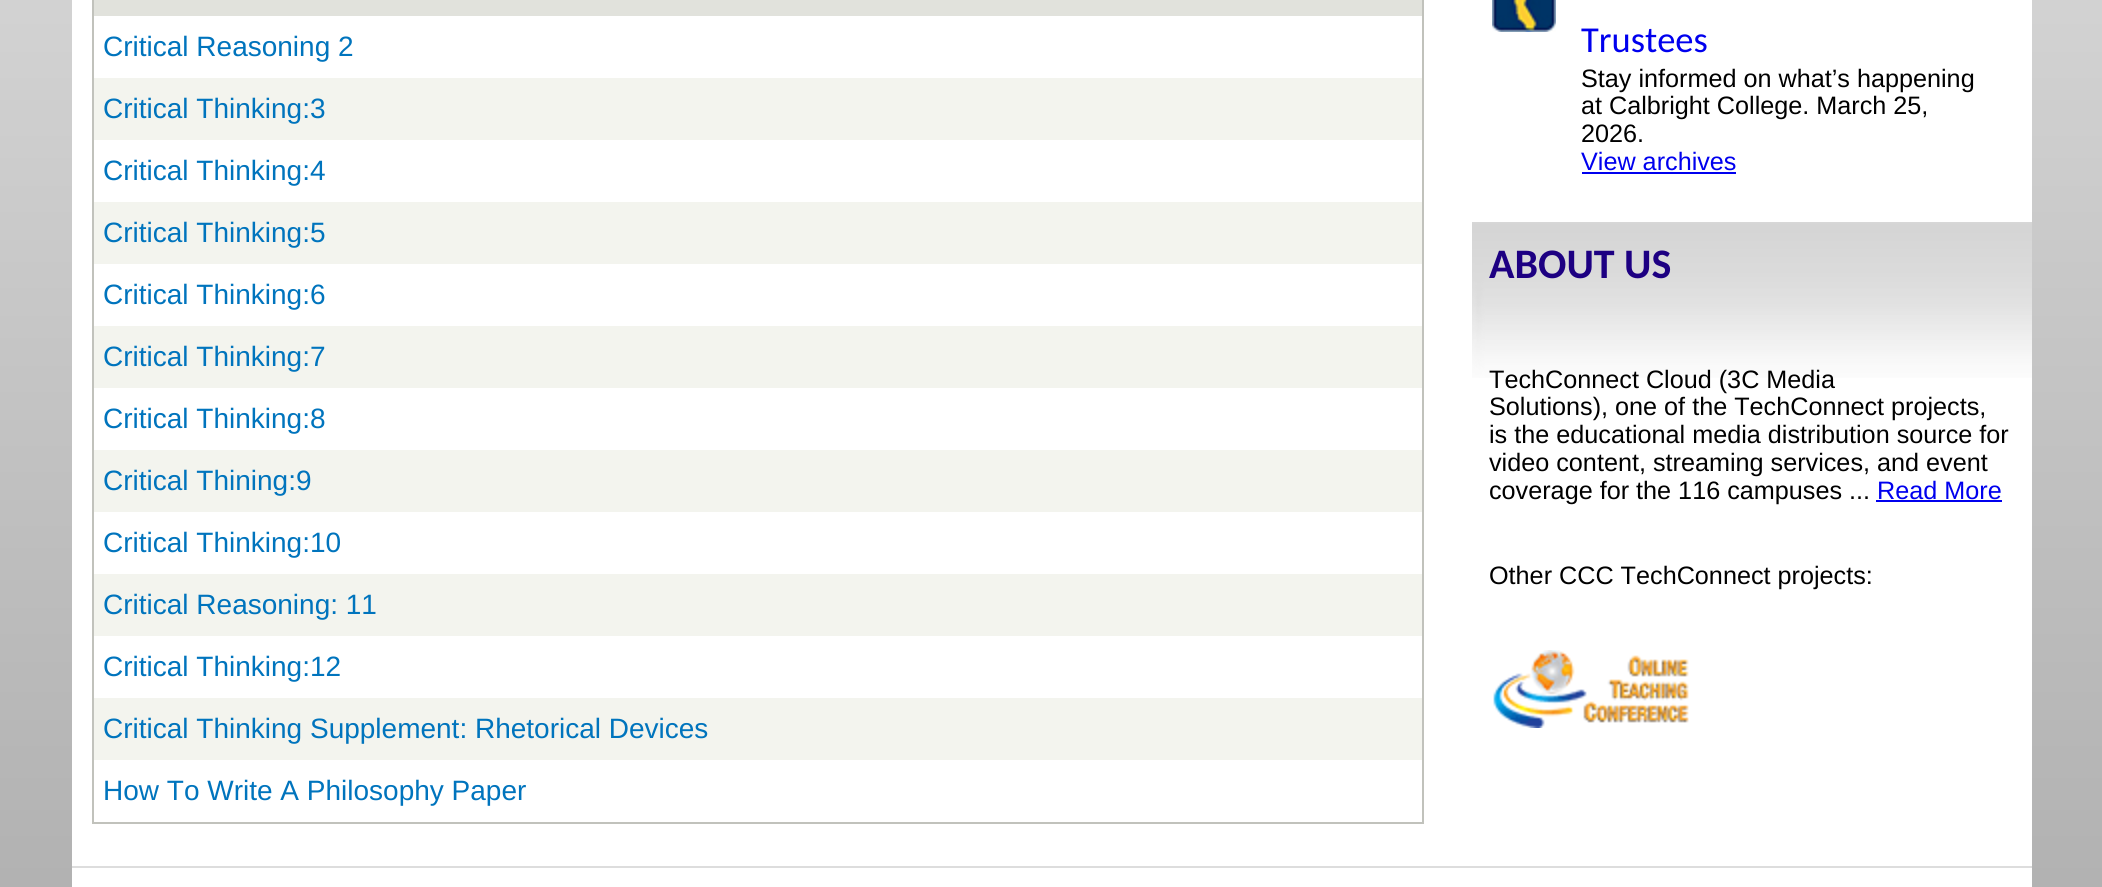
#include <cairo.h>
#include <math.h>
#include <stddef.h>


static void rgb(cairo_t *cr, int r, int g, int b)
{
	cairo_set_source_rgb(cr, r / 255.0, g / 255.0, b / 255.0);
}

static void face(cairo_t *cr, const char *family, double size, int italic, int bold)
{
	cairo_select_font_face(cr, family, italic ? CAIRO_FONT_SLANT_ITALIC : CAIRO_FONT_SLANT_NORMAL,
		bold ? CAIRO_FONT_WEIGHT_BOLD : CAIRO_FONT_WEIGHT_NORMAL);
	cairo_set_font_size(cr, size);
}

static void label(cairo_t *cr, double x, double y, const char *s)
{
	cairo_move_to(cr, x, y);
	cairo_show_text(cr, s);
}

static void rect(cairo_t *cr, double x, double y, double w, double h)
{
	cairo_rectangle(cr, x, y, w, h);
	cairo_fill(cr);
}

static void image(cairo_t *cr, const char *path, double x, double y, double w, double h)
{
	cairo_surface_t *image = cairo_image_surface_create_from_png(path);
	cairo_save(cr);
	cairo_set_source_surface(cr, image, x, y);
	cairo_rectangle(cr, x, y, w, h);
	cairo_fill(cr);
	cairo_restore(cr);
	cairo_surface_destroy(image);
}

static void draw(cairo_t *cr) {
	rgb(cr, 255, 255, 255);
	cairo_paint(cr);
	image(cr, "image0.png", 0, 0, 2102, 887);
	rgb(cr, 255, 255, 255);
	rect(cr, 72, 0, 1960, 866);
	rgb(cr, 193, 194, 188);
	rect(cr, 1422, 0, 2, 824);
	rect(cr, 92, 822, 1332, 2);
	rect(cr, 92, 0, 2, 824);
	rgb(cr, 225, 226, 220);
	rect(cr, 94, 0, 1328, 16);
	face(cr, "Liberation Sans", 28, 0, 0);
	rgb(cr, 0, 116, 189);
	label(cr, 103, 56, "Critical Reasoning 2");
	rgb(cr, 243, 244, 238);
	rect(cr, 94, 78, 1328, 62);
	rgb(cr, 0, 116, 189);
	label(cr, 103, 118, "Critical Thinking:3");
	label(cr, 103, 180, "Critical Thinking:4");
	rgb(cr, 243, 244, 238);
	rect(cr, 94, 202, 1328, 62);
	rgb(cr, 0, 116, 189);
	label(cr, 103, 242, "Critical Thinking:5");
	label(cr, 103, 304, "Critical Thinking:6");
	rgb(cr, 243, 244, 238);
	rect(cr, 94, 326, 1328, 62);
	rgb(cr, 0, 116, 189);
	label(cr, 103, 366, "Critical Thinking:7");
	label(cr, 103, 428, "Critical Thinking:8");
	rgb(cr, 243, 244, 238);
	rect(cr, 94, 450, 1328, 62);
	rgb(cr, 0, 116, 189);
	label(cr, 103, 490, "Critical Thining:9");
	label(cr, 103, 552, "Critical Thinking:10");
	rgb(cr, 243, 244, 238);
	rect(cr, 94, 574, 1328, 62);
	rgb(cr, 0, 116, 189);
	label(cr, 103, 614, "Critical Reasoning: 11");
	label(cr, 103, 676, "Critical Thinking:12");
	rgb(cr, 243, 244, 238);
	rect(cr, 94, 698, 1328, 62);
	rgb(cr, 0, 116, 189);
	label(cr, 103, 738, "Critical Thinking Supplement: Rhetorical Devices");
	label(cr, 103, 800, "How To Write A Philosophy Paper");
	image(cr, "image1.png", 1492, 0, 64, 32);
	face(cr, "Carlito", 36.5, 0, 0);
	rgb(cr, 0, 0, 238);
	label(cr, 1581, 52, "Trustees");
	face(cr, "Liberation Sans", 25.2, 0, 0);
	rgb(cr, 0, 0, 0);
	label(cr, 1581, 87, "Stay informed on what’s happening");
	label(cr, 1581, 114, "at Calbright College. March 25,");
	label(cr, 1581, 142, "2026.");
	rgb(cr, 0, 0, 238);
	label(cr, 1581, 170, "View archives");
	rect(cr, 1582, 172, 154, 2);
	image(cr, "image2.png", 1472, 222, 560, 156);
	face(cr, "Carlito", 42, 0, 1);
	rgb(cr, 29, 0, 130);
	label(cr, 1489, 278, "ABOUT US");
	face(cr, "Liberation Sans", 25.2, 0, 0);
	rgb(cr, 0, 0, 0);
	label(cr, 1489, 388, "TechConnect Cloud (3C Media");
	label(cr, 1489, 415, "Solutions), one of the TechConnect projects,");
	label(cr, 1489, 443, "is the educational media distribution source for");
	label(cr, 1489, 471, "video content, streaming services, and event");
	label(cr, 1489, 499, "coverage for the 116 campuses ...");
	rgb(cr, 0, 0, 238);
	label(cr, 1877, 499, "Read More");
	rect(cr, 1876, 500, 126, 2);
	rgb(cr, 0, 0, 0);
	label(cr, 1489, 584, "Other CCC TechConnect projects:");
	image(cr, "image3.png", 1493, 650, 196, 78);
	rgb(cr, 255, 255, 255);
	rect(cr, 72, 868, 1960, 19);
	rgb(cr, 221, 221, 221);
	rect(cr, 72, 866, 1960, 2);
}

int main(void) {
	cairo_surface_t *surface = cairo_image_surface_create(CAIRO_FORMAT_RGB24, 2102, 887);
	cairo_t *cr = cairo_create(surface);
	cairo_font_options_t *options = cairo_font_options_create();
	cairo_font_options_set_hint_metrics(options, CAIRO_HINT_METRICS_OFF);
	cairo_font_options_set_hint_style(options, CAIRO_HINT_STYLE_NONE);
	cairo_set_font_options(cr, options);
	cairo_set_miter_limit(cr, 4);
	draw(cr);
	cairo_surface_write_to_png(surface, "render.png");
	cairo_font_options_destroy(options);
	cairo_destroy(cr);
	cairo_surface_destroy(surface);
	return 0;
}
